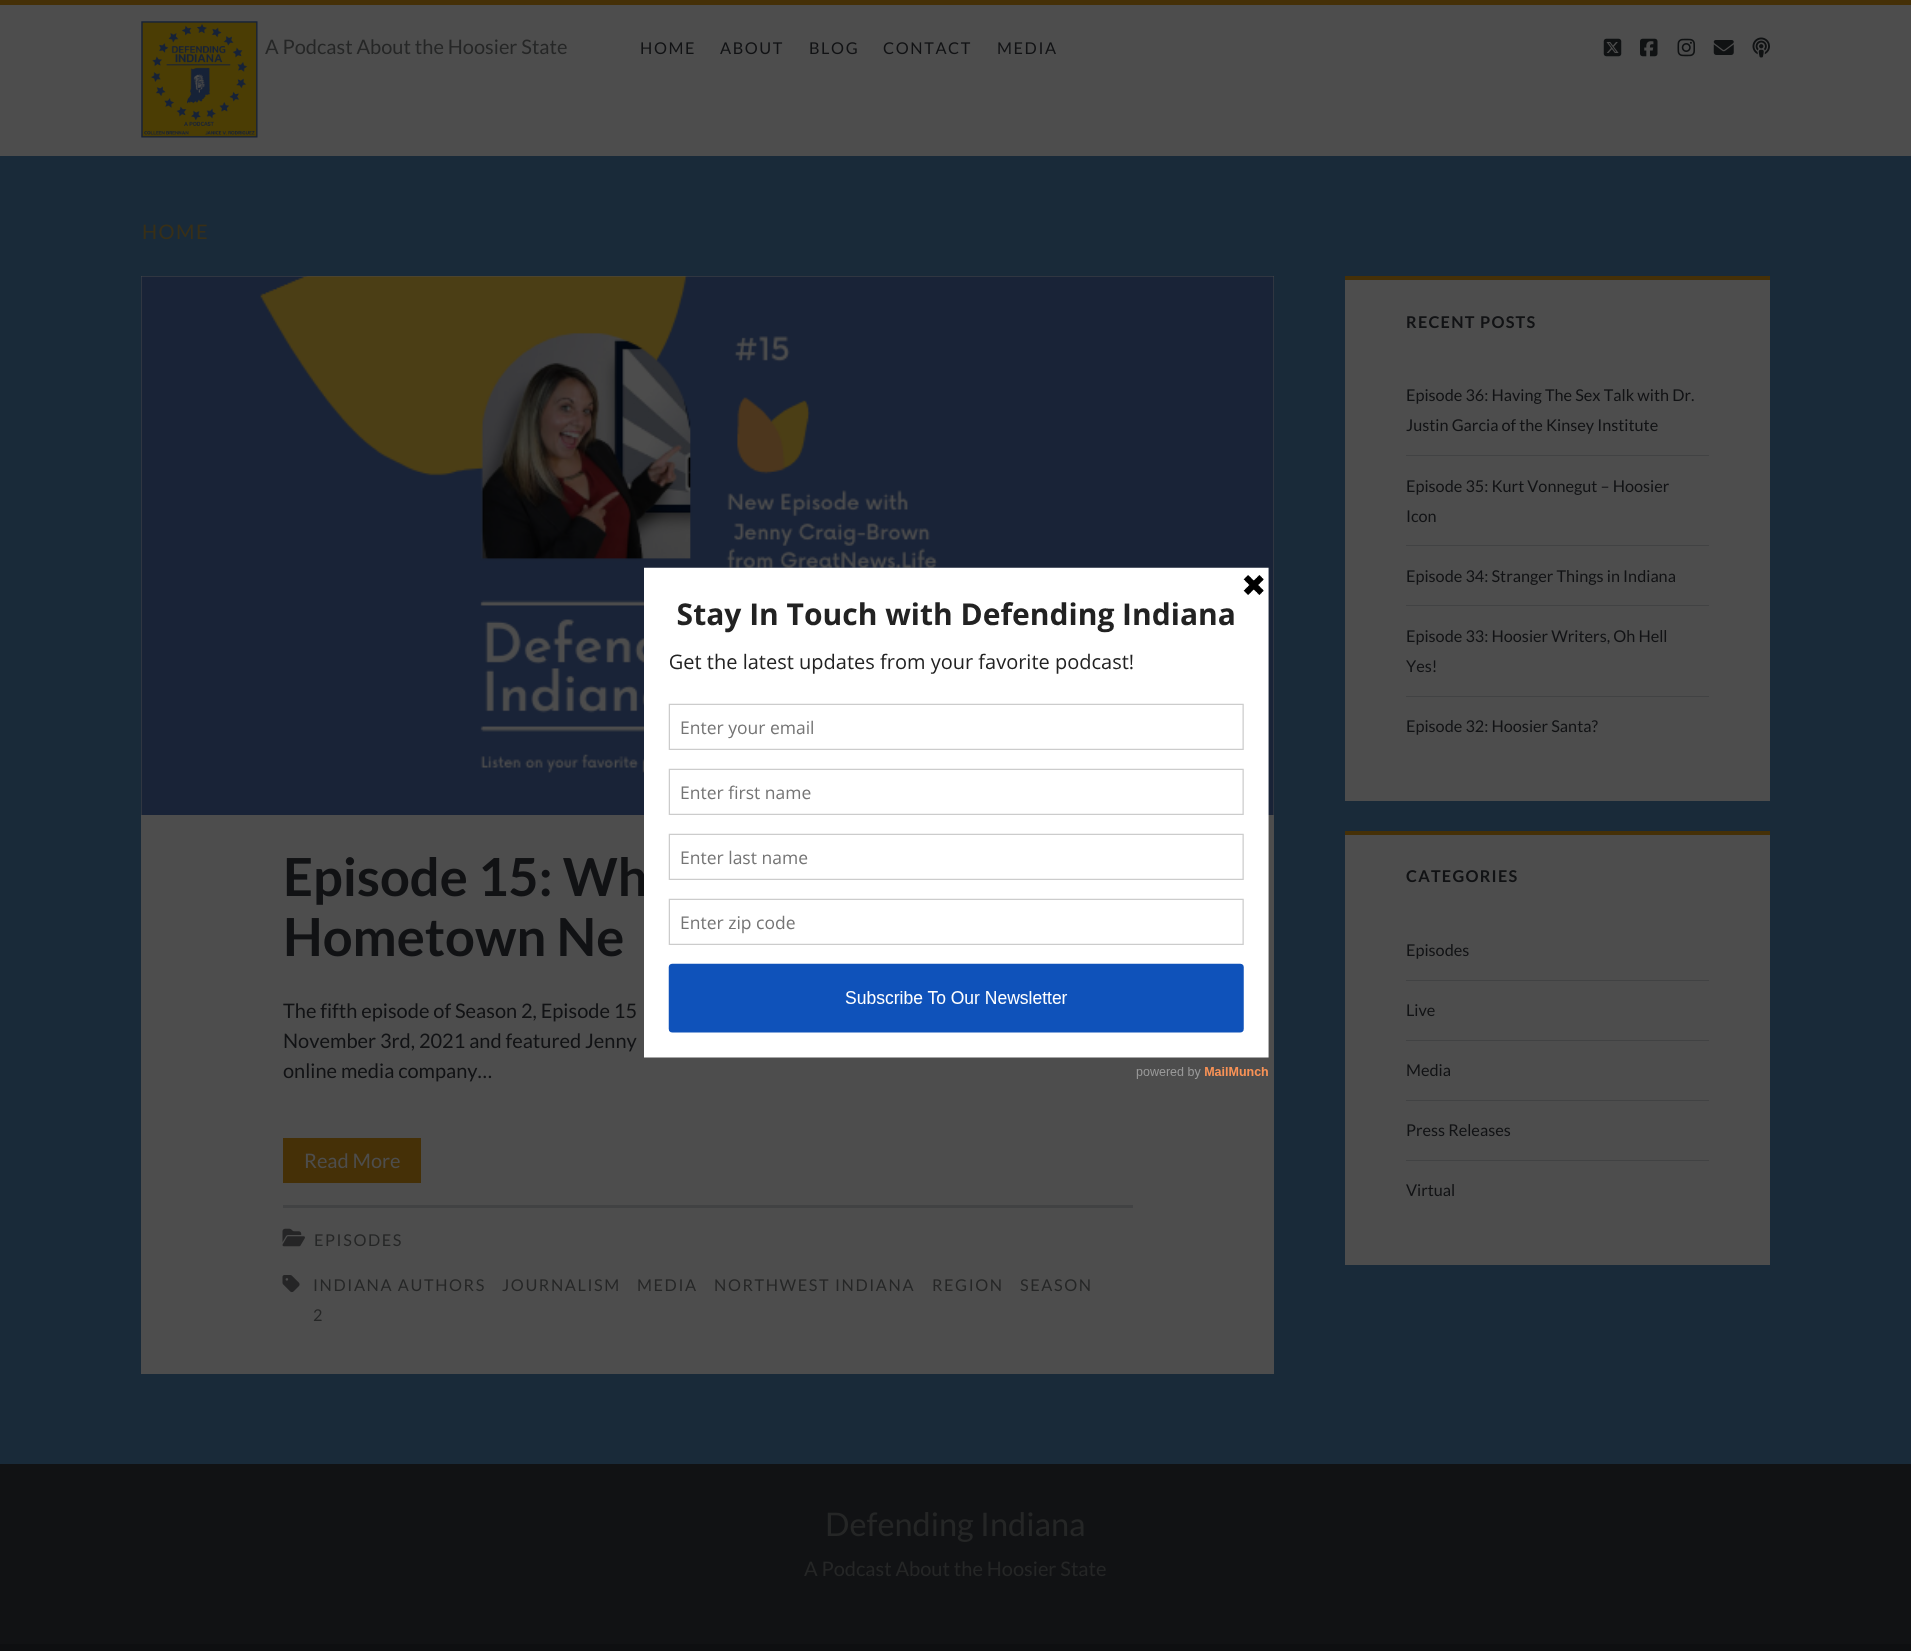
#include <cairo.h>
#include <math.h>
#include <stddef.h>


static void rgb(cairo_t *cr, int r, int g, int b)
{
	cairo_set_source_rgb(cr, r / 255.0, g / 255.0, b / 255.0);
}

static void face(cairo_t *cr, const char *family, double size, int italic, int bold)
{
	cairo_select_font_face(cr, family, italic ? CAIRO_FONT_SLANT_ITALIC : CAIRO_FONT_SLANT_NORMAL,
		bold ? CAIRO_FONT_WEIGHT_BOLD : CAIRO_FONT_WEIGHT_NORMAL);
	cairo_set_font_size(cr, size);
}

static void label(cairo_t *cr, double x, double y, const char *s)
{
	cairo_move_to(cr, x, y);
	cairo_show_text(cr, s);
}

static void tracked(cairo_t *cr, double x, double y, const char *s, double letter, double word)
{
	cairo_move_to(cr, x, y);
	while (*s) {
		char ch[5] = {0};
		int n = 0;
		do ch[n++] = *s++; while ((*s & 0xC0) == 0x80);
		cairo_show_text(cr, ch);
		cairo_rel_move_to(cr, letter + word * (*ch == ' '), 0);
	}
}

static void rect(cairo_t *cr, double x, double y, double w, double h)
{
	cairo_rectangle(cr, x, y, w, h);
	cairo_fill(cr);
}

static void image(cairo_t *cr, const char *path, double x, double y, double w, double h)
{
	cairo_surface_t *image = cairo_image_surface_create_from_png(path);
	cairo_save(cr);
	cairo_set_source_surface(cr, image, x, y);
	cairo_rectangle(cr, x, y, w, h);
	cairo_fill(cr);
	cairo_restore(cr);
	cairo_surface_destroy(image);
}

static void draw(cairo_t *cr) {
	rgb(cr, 25, 42, 57);
	cairo_paint(cr);
	rgb(cr, 77, 77, 77);
	rect(cr, 0, 5, 1911, 151);
	rgb(cr, 69, 48, 7);
	rect(cr, 0, 0, 1911, 5);
	image(cr, "image0.png", 141, 21, 117, 117);
	face(cr, "Lato", 20, 0, 0);
	rgb(cr, 37, 38, 38);
	label(cr, 265, 54, "A Podcast About the Hoosier State");
	face(cr, "Lato", 16.25, 0, 0);
	rgb(cr, 17, 18, 20);
	tracked(cr, 640, 54, "HOME", 1.6, 0);
	tracked(cr, 720, 54, "ABOUT", 1.6, 0);
	tracked(cr, 809, 54, "BLOG", 1.6, 0);
	tracked(cr, 883, 54, "CONTACT", 1.6, 0);
	tracked(cr, 997, 54, "MEDIA", 1.6, 0);
	image(cr, "image1.png", 1603, 38, 19, 19);
	image(cr, "image2.png", 1640, 38, 18, 19);
	image(cr, "image3.png", 1677, 38, 18, 19);
	image(cr, "image4.png", 1713, 40, 21, 15);
	image(cr, "image5.png", 1752, 37, 18, 21);
	face(cr, "Lato", 20, 0, 0);
	rgb(cr, 56, 47, 22);
	tracked(cr, 142, 239, "HOME", 1.5, 0);
	rgb(cr, 77, 77, 77);
	rect(cr, 141, 276, 1133, 1098);
	image(cr, "image6.png", 141, 276, 1133, 539);
	face(cr, "Lato", 52.5, 0, 1);
	rgb(cr, 17, 18, 20);
	label(cr, 283, 896, "Episode 15: Wh");
	label(cr, 283, 956, "Hometown Ne");
	rgb(cr, 65, 66, 67);
	rect(cr, 283, 1205, 850, 3);
	face(cr, "Lato", 20, 0, 0);
	rgb(cr, 17, 18, 20);
	label(cr, 283, 1018, "The fifth episode of Season 2, Episode 15");
	label(cr, 283, 1048, "November 3rd, 2021 and featured Jenny");
	label(cr, 283, 1078, "online media company…");
	rgb(cr, 69, 48, 7);
	rect(cr, 283, 1138, 138, 45);
	rgb(cr, 77, 77, 77);
	label(cr, 304, 1168, "Read More");
	image(cr, "image7.png", 282, 1228, 23, 19);
	face(cr, "Lato", 16.25, 0, 0);
	rgb(cr, 37, 38, 38);
	tracked(cr, 314, 1246, "EPISODES", 1.6, 0);
	image(cr, "image8.png", 282, 1275, 18, 18);
	tracked(cr, 313, 1291, "INDIANA AUTHORS", 1.6, 0);
	tracked(cr, 502, 1291, "JOURNALISM", 1.6, 0);
	tracked(cr, 637, 1291, "MEDIA", 1.6, 0);
	tracked(cr, 714, 1291, "NORTHWEST INDIANA", 1.6, 0);
	tracked(cr, 932, 1291, "REGION", 1.6, 0);
	tracked(cr, 1020, 1291, "SEASON", 1.6, 0);
	tracked(cr, 313, 1321, "2", 1.6, 0);
	rgb(cr, 77, 77, 77);
	rect(cr, 1345, 280, 425, 521);
	rgb(cr, 69, 48, 7);
	rect(cr, 1345, 276, 425, 4);
	face(cr, "Lato", 16.25, 0, 1);
	rgb(cr, 17, 18, 20);
	tracked(cr, 1406, 328, "RECENT POSTS", 1.25, 0);
	rgb(cr, 65, 66, 67);
	rect(cr, 1406, 455, 303, 1);
	face(cr, "Lato", 16.25, 0, 0);
	rgb(cr, 17, 18, 20);
	label(cr, 1406, 401, "Episode 36: Having The Sex Talk with Dr.");
	label(cr, 1406, 431, "Justin Garcia of the Kinsey Institute");
	rgb(cr, 65, 66, 67);
	rect(cr, 1406, 545, 303, 1);
	rgb(cr, 17, 18, 20);
	label(cr, 1406, 492, "Episode 35: Kurt Vonnegut – Hoosier");
	label(cr, 1406, 522, "Icon");
	rgb(cr, 65, 66, 67);
	rect(cr, 1406, 605, 303, 1);
	rgb(cr, 17, 18, 20);
	label(cr, 1406, 582, "Episode 34: Stranger Things in Indiana");
	rgb(cr, 65, 66, 67);
	rect(cr, 1406, 696, 303, 1);
	rgb(cr, 17, 18, 20);
	label(cr, 1406, 642, "Episode 33: Hoosier Writers, Oh Hell");
	label(cr, 1406, 672, "Yes!");
	label(cr, 1406, 732, "Episode 32: Hoosier Santa?");
	rgb(cr, 77, 77, 77);
	rect(cr, 1345, 835, 425, 430);
	rgb(cr, 69, 48, 7);
	rect(cr, 1345, 831, 425, 4);
	face(cr, "Lato", 16.25, 0, 1);
	rgb(cr, 17, 18, 20);
	tracked(cr, 1406, 882, "CATEGORIES", 1.25, 0);
	rgb(cr, 65, 66, 67);
	rect(cr, 1406, 980, 303, 1);
	face(cr, "Lato", 16.25, 0, 0);
	rgb(cr, 17, 18, 20);
	label(cr, 1406, 956, "Episodes");
	rgb(cr, 65, 66, 67);
	rect(cr, 1406, 1040, 303, 1);
	rgb(cr, 17, 18, 20);
	label(cr, 1406, 1016, "Live");
	rgb(cr, 65, 66, 67);
	rect(cr, 1406, 1100, 303, 1);
	rgb(cr, 17, 18, 20);
	label(cr, 1406, 1076, "Media");
	rgb(cr, 65, 66, 67);
	rect(cr, 1406, 1160, 303, 1);
	rgb(cr, 17, 18, 20);
	label(cr, 1406, 1136, "Press Releases");
	label(cr, 1406, 1196, "Virtual");
	image(cr, "image9.png", 644, 567, 625, 512);
	rect(cr, 0, 1464, 1911, 180);
	face(cr, "Lato", 32.5, 0, 0);
	rgb(cr, 37, 38, 38);
	label(cr, 825, 1536, "Defending Indiana");
	face(cr, "Lato", 20, 0, 0);
	label(cr, 804, 1576, "A Podcast About the Hoosier State");
	rgb(cr, 14, 15, 17);
	rect(cr, 0, 1644, 1911, 7);
}

int main(void) {
	cairo_surface_t *surface = cairo_image_surface_create(CAIRO_FORMAT_RGB24, 1911, 1651);
	cairo_t *cr = cairo_create(surface);
	cairo_font_options_t *options = cairo_font_options_create();
	cairo_font_options_set_hint_metrics(options, CAIRO_HINT_METRICS_OFF);
	cairo_font_options_set_hint_style(options, CAIRO_HINT_STYLE_NONE);
	cairo_set_font_options(cr, options);
	cairo_set_miter_limit(cr, 4);
	draw(cr);
	cairo_surface_write_to_png(surface, "render.png");
	cairo_font_options_destroy(options);
	cairo_destroy(cr);
	cairo_surface_destroy(surface);
	return 0;
}
